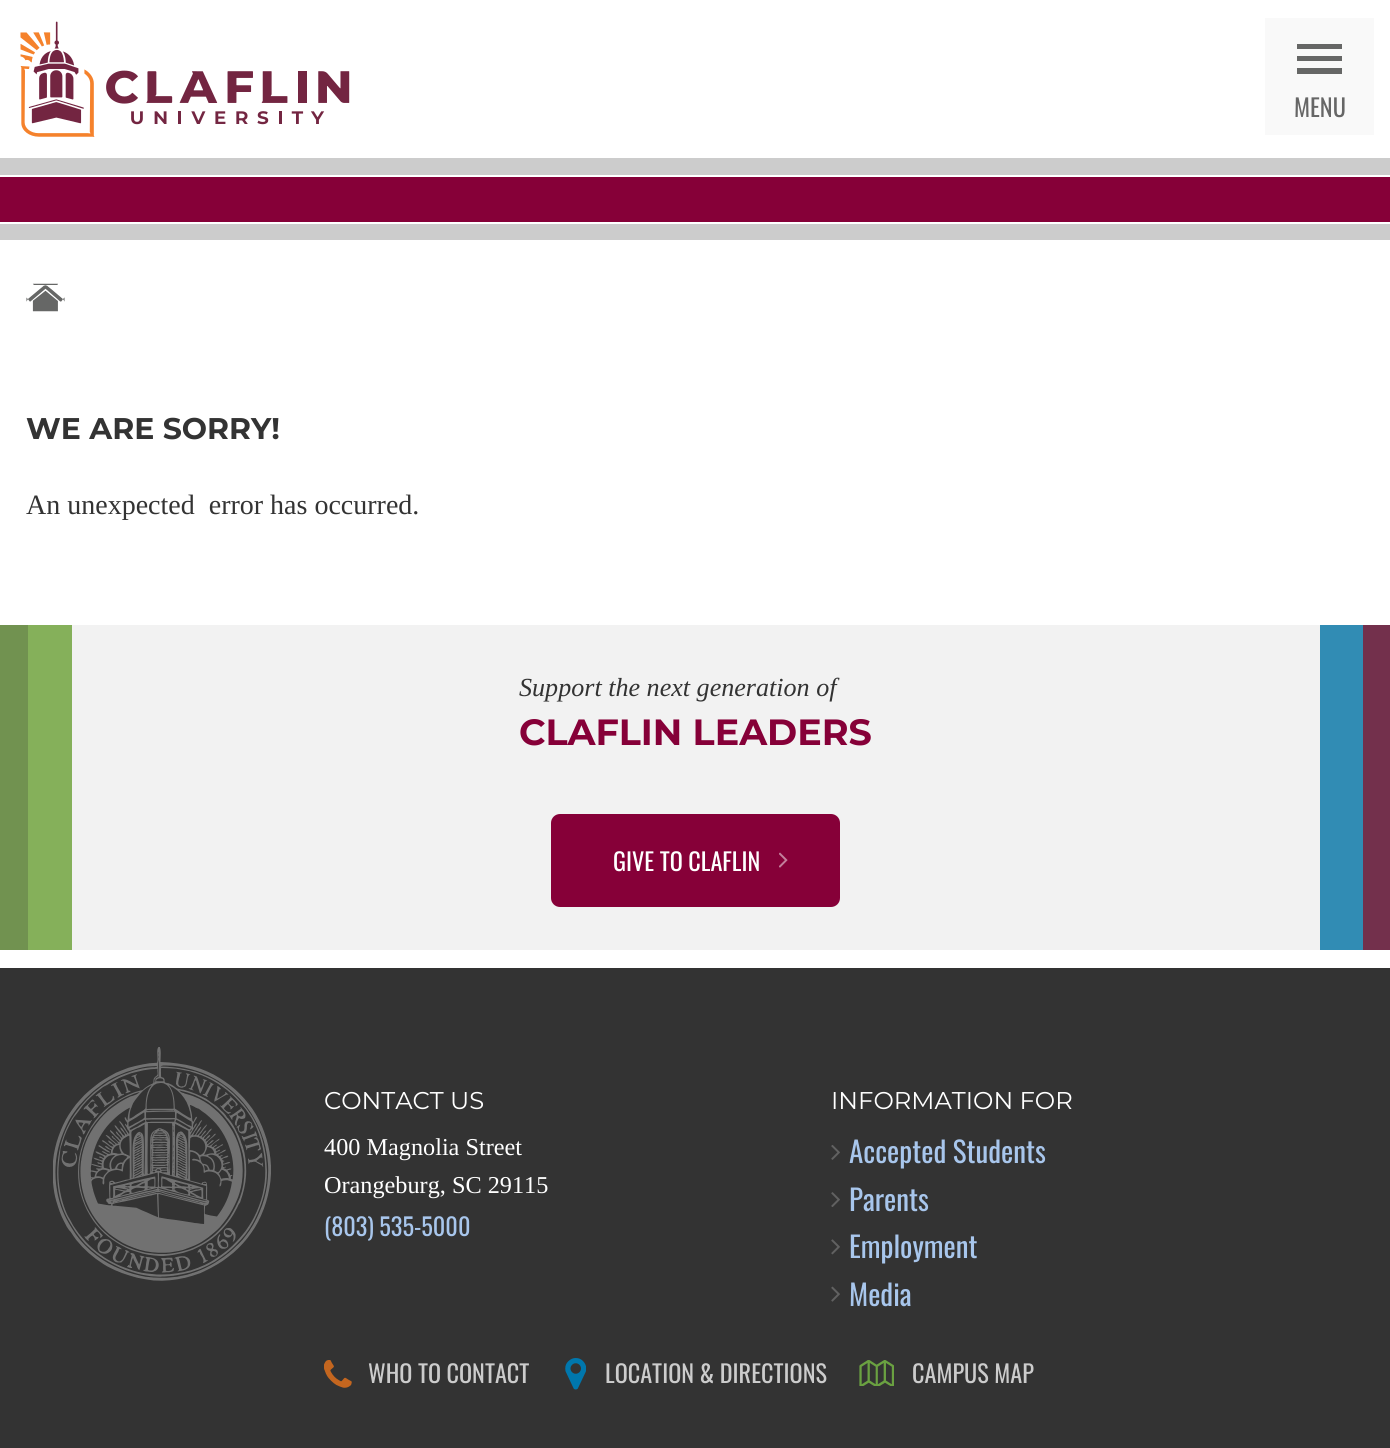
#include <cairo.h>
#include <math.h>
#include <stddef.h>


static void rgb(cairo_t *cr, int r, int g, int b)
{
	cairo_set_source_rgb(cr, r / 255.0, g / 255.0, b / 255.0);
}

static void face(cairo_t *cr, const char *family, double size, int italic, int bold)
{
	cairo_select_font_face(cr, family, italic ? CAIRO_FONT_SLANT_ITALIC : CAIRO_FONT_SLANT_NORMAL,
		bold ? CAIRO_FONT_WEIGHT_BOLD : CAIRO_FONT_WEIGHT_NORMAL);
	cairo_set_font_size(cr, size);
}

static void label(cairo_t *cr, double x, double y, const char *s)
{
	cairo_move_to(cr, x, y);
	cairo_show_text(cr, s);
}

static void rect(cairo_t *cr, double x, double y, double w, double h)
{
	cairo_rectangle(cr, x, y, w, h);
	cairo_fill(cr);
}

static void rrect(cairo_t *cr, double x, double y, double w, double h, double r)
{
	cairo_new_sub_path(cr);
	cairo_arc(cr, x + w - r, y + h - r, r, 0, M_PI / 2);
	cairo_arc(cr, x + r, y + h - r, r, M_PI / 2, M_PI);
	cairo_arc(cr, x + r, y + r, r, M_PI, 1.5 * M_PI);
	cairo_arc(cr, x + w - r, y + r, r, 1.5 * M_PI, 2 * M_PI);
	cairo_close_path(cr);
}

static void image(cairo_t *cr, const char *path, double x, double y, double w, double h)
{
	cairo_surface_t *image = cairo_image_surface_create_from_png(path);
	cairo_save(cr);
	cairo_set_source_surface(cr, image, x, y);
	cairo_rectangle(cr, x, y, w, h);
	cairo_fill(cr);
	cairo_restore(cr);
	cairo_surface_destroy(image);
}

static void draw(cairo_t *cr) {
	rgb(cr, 255, 255, 255);
	cairo_paint(cr);
	image(cr, "image0.png", 20, 21, 330, 116);
	rgb(cr, 249, 249, 249);
	rect(cr, 1265, 18, 109, 117);
	rgb(cr, 102, 103, 102);
	rect(cr, 1297, 56, 45, 5);
	rect(cr, 1297, 44, 45, 5);
	rect(cr, 1297, 68, 45, 6);
	face(cr, "Oswald", 24.25, 0, 0);
	rgb(cr, 102, 102, 102);
	label(cr, 1294, 117, "MENU");
	rgb(cr, 204, 204, 204);
	rect(cr, 0, 158, 1390, 17);
	rgb(cr, 134, 0, 56);
	rect(cr, 0, 177, 1390, 45);
	rgb(cr, 204, 204, 204);
	rect(cr, 0, 224, 1390, 16);
	image(cr, "image1.png", 26, 283, 39, 29);
	face(cr, "Montserrat", 29.9, 0, 1);
	rgb(cr, 51, 51, 51);
	label(cr, 26, 439, "WE ARE SORRY!");
	face(cr, "Liberation Serif", 28, 0, 0);
	label(cr, 26, 514, "An unexpected  error has occurred.");
	rgb(cr, 242, 242, 242);
	rect(cr, 72, 625, 1248, 325);
	rgb(cr, 113, 146, 80);
	rect(cr, 0, 625, 28, 325);
	rgb(cr, 133, 176, 90);
	rect(cr, 28, 625, 44, 325);
	face(cr, "Liberation Serif", 26.1, 1, 0);
	rgb(cr, 51, 51, 51);
	label(cr, 519, 696, "Support the next generation of");
	face(cr, "Montserrat", 36.5, 0, 1);
	rgb(cr, 134, 0, 56);
	label(cr, 519, 745, "CLAFLIN LEADERS");
	rrect(cr, 551, 814, 289, 93, 9);
	cairo_fill(cr);
	face(cr, "Oswald", 24.25, 0, 0);
	rgb(cr, 255, 255, 255);
	label(cr, 613, 871, "GIVE TO CLAFLIN");
	image(cr, "image2.png", 779, 852, 9, 16);
	rgb(cr, 49, 140, 180);
	rect(cr, 1320, 625, 43, 325);
	rgb(cr, 115, 48, 76);
	rect(cr, 1363, 625, 27, 325);
	rgb(cr, 51, 51, 51);
	rect(cr, 0, 968, 1390, 480);
	image(cr, "image3.png", 53, 1047, 218, 234);
	face(cr, "Montserrat", 24.25, 0, 0);
	rgb(cr, 255, 255, 255);
	label(cr, 324, 1109, "CONTACT US");
	face(cr, "Liberation Serif", 24.25, 0, 0);
	label(cr, 324, 1155, "400 Magnolia Street");
	label(cr, 324, 1193, "Orangeburg, SC 29115");
	face(cr, "Oswald", 24.25, 0, 0);
	rgb(cr, 168, 198, 236);
	label(cr, 324, 1236, "(803) 535-5000");
	face(cr, "Montserrat", 24.25, 0, 0);
	rgb(cr, 255, 255, 255);
	label(cr, 831, 1109, "INFORMATION FOR");
	image(cr, "image4.png", 831, 1145, 9, 15);
	face(cr, "Oswald", 29, 0, 0);
	rgb(cr, 168, 198, 236);
	label(cr, 849, 1163, "Accepted Students");
	image(cr, "image5.png", 831, 1192, 9, 15);
	label(cr, 849, 1211, "Parents");
	image(cr, "image6.png", 831, 1239, 9, 16);
	label(cr, 849, 1258, "Employment");
	image(cr, "image7.png", 831, 1286, 9, 16);
	label(cr, 849, 1306, "Media");
	image(cr, "image8.png", 324, 1360, 28, 28);
	face(cr, "Oswald", 24.25, 0, 0);
	rgb(cr, 204, 204, 204);
	label(cr, 368, 1383, "WHO TO CONTACT");
	image(cr, "image9.png", 565, 1358, 21, 32);
	label(cr, 605, 1383, "LOCATION & DIRECTIONS");
	image(cr, "image10.png", 859, 1360, 35, 26);
	label(cr, 912, 1383, "CAMPUS MAP");
}

int main(void) {
	cairo_surface_t *surface = cairo_image_surface_create(CAIRO_FORMAT_RGB24, 1390, 1448);
	cairo_t *cr = cairo_create(surface);
	cairo_font_options_t *options = cairo_font_options_create();
	cairo_font_options_set_hint_metrics(options, CAIRO_HINT_METRICS_OFF);
	cairo_font_options_set_hint_style(options, CAIRO_HINT_STYLE_NONE);
	cairo_set_font_options(cr, options);
	cairo_set_miter_limit(cr, 4);
	draw(cr);
	cairo_surface_write_to_png(surface, "render.png");
	cairo_font_options_destroy(options);
	cairo_destroy(cr);
	cairo_surface_destroy(surface);
	return 0;
}
